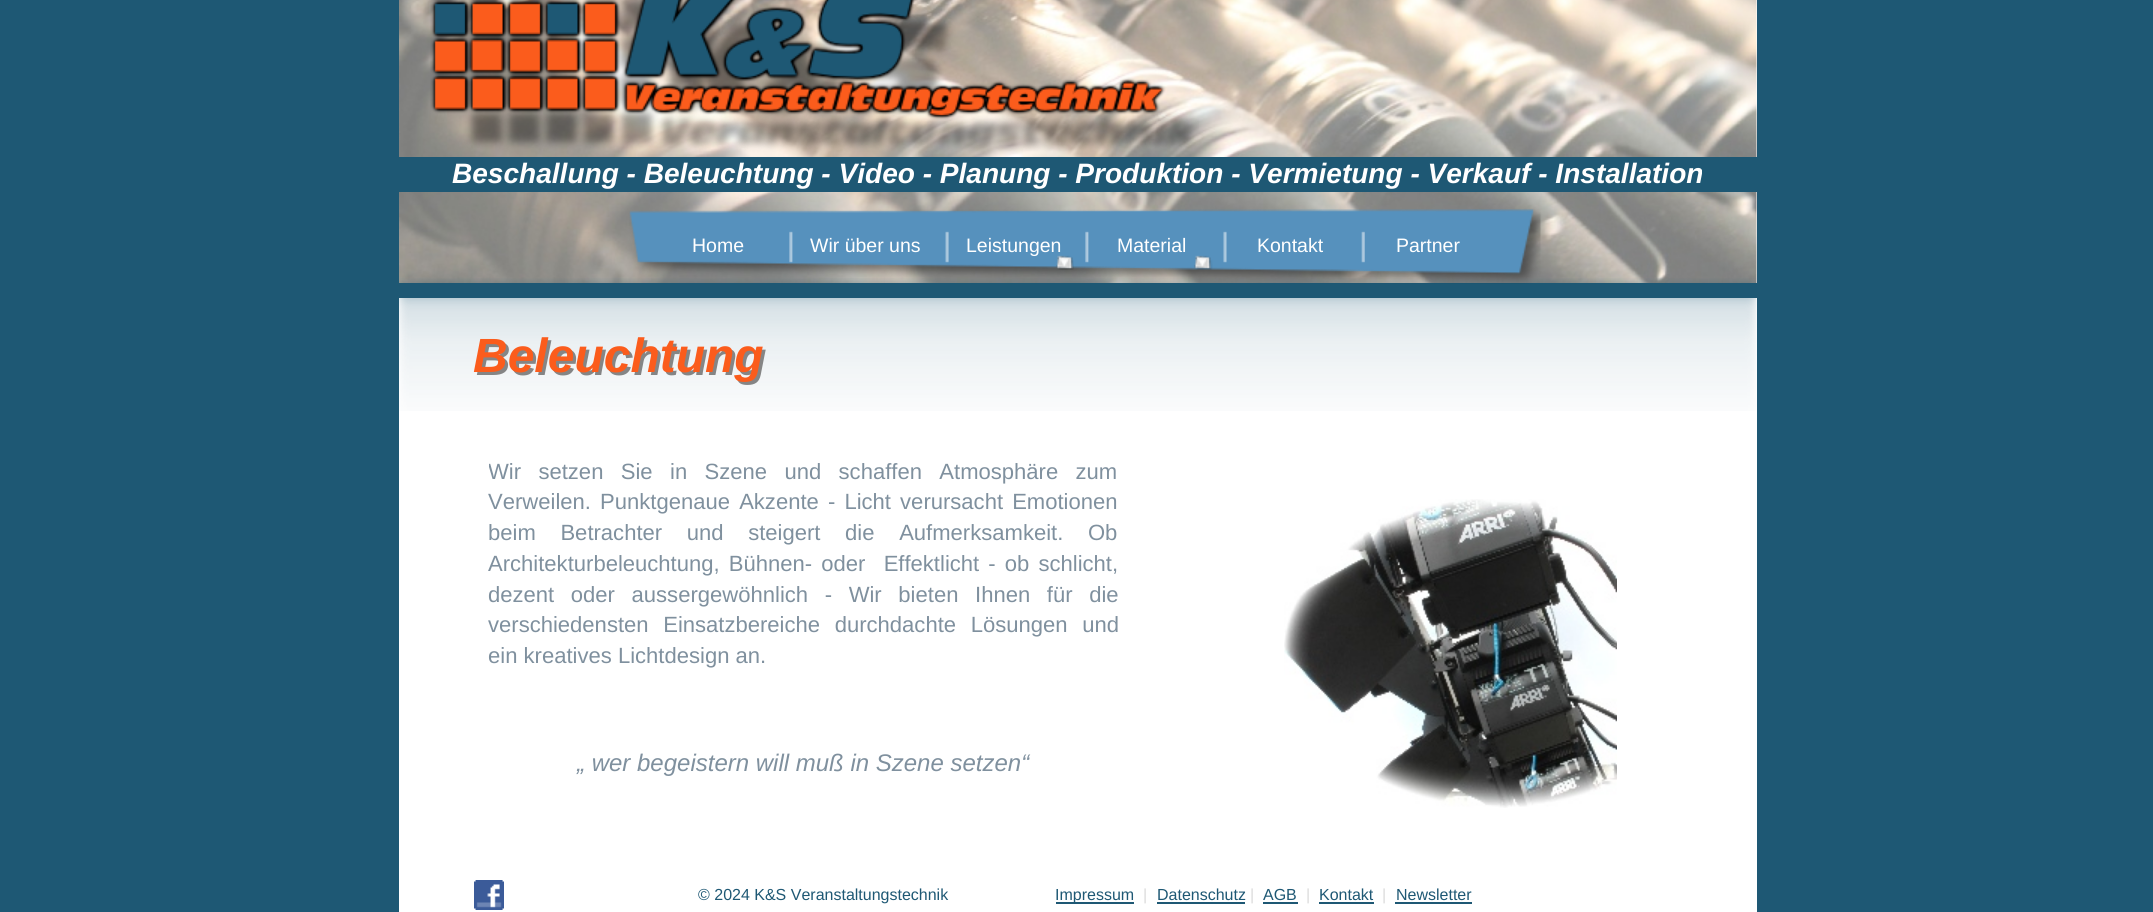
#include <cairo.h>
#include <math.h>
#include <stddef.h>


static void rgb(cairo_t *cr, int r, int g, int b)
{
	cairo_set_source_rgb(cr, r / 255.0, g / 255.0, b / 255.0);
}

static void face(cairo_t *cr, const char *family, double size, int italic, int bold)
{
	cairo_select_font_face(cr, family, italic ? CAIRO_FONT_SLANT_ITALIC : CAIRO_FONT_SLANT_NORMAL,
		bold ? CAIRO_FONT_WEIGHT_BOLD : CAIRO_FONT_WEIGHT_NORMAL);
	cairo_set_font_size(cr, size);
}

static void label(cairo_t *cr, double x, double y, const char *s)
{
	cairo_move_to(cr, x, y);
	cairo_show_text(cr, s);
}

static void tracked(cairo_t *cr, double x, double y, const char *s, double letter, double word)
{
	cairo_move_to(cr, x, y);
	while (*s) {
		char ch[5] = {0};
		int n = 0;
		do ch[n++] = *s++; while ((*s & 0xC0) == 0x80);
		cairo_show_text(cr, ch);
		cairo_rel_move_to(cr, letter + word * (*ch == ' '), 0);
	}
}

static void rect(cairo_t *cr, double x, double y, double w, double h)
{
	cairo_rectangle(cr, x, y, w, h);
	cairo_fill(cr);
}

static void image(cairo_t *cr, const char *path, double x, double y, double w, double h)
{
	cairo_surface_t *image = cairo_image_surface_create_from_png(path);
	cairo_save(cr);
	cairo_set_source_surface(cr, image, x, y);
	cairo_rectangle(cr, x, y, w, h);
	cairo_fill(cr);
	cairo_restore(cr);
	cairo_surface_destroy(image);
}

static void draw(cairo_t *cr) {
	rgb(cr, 30, 88, 116);
	cairo_paint(cr);
	rgb(cr, 255, 255, 255);
	rect(cr, 399, 0, 1358, 912);
	image(cr, "image0.png", 399, 0, 1358, 283);
	image(cr, "image1.png", 430, 0, 769, 155);
	rgb(cr, 30, 88, 116);
	rect(cr, 399, 157, 1358, 35);
	face(cr, "Liberation Sans", 28.05, 1, 1);
	rgb(cr, 255, 255, 255);
	label(cr, 452, 183, "Beschallung - Beleuchtung - Video - Planung - Produktion - Vermietung - Verkauf - Installation");
	image(cr, "image5.png", 399, 278, 1358, 133);
	rgb(cr, 30, 88, 116);
	rect(cr, 399, 283, 1358, 15);
	image(cr, "image2.png", 629, 209, 912, 75);
	face(cr, "Liberation Sans", 19.5, 0, 0);
	rgb(cr, 255, 255, 255);
	label(cr, 692, 252, "Home");
	label(cr, 810, 252, "Wir über uns");
	image(cr, "image3.png", 1056, 255, 18, 15);
	label(cr, 966, 252, "Leistungen");
	image(cr, "image4.png", 1194, 255, 19, 15);
	label(cr, 1117, 252, "Material");
	label(cr, 1257, 252, "Kontakt");
	label(cr, 1396, 252, "Partner");
	face(cr, "Liberation Sans", 48, 1, 1);
	rgb(cr, 133, 133, 133);
	label(cr, 476, 375, "Beleuchtung");
	rgb(cr, 251, 92, 28);
	label(cr, 473, 372, "Beleuchtung");
	cairo_save(cr);
	cairo_rectangle(cr, 489, 456, 630, 257);
	cairo_clip(cr);
	face(cr, "Liberation Sans", 22.05, 0, 0);
	rgb(cr, 127, 144, 158);
	tracked(cr, 488, 479, "Wir setzen Sie in Szene und schaffen Atmosphäre zum", 0, 11.25);
	cairo_restore(cr);
	face(cr, "Liberation Sans", 22.05, 0, 0);
	rgb(cr, 127, 144, 158);
	tracked(cr, 488, 509, "Verweilen. Punktgenaue Akzente - Licht verursacht Emotionen", 0, 3);
	tracked(cr, 488, 540, "beim Betrachter und steigert die Aufmerksamkeit. Ob", 0, 18.5);
	tracked(cr, 488, 571, "Architekturbeleuchtung, Bühnen- oder  Effektlicht - ob schlicht,", 0, 3);
	tracked(cr, 488, 602, "dezent oder aussergewöhnlich - Wir bieten Ihnen für die", 0, 10.5);
	tracked(cr, 488, 632, "verschiedensten Einsatzbereiche durchdachte Lösungen und", 0, 8.5);
	label(cr, 488, 663, "ein kreatives Lichtdesign an.");
	image(cr, "image6.png", 1284, 499, 333, 309);
	face(cr, "Liberation Sans", 24, 1, 0);
	label(cr, 577, 771, "„ wer begeistern will muß in Szene setzen“");
	image(cr, "image7.png", 474, 880, 30, 30);
	face(cr, "Liberation Sans", 16, 0, 0);
	rgb(cr, 30, 88, 116);
	label(cr, 698, 900, "© 2024 K&S Veranstaltungstechnik");
	rect(cr, 1056, 902, 78, 2);
	label(cr, 1055, 900, "Impressum");
	rgb(cr, 219, 219, 219);
	label(cr, 1143, 900, "|");
	rgb(cr, 30, 88, 116);
	label(cr, 1157, 900, "Datenschutz");
	rect(cr, 1157, 902, 88, 2);
	rgb(cr, 219, 219, 219);
	label(cr, 1250, 900, "|");
	rgb(cr, 30, 88, 116);
	label(cr, 1263, 900, "AGB");
	rect(cr, 1263, 902, 35, 2);
	rgb(cr, 219, 219, 219);
	label(cr, 1306, 900, "|");
	rgb(cr, 30, 88, 116);
	label(cr, 1319, 900, "Kontakt");
	rect(cr, 1319, 902, 55, 2);
	rgb(cr, 219, 219, 219);
	label(cr, 1382, 900, "|");
	rgb(cr, 30, 88, 116);
	label(cr, 1396, 900, "Newsletter");
	rect(cr, 1395, 902, 77, 2);
}

int main(void) {
	cairo_surface_t *surface = cairo_image_surface_create(CAIRO_FORMAT_RGB24, 2153, 912);
	cairo_t *cr = cairo_create(surface);
	cairo_font_options_t *options = cairo_font_options_create();
	cairo_font_options_set_hint_metrics(options, CAIRO_HINT_METRICS_OFF);
	cairo_font_options_set_hint_style(options, CAIRO_HINT_STYLE_NONE);
	cairo_set_font_options(cr, options);
	cairo_set_miter_limit(cr, 4);
	draw(cr);
	cairo_surface_write_to_png(surface, "render.png");
	cairo_font_options_destroy(options);
	cairo_destroy(cr);
	cairo_surface_destroy(surface);
	return 0;
}
